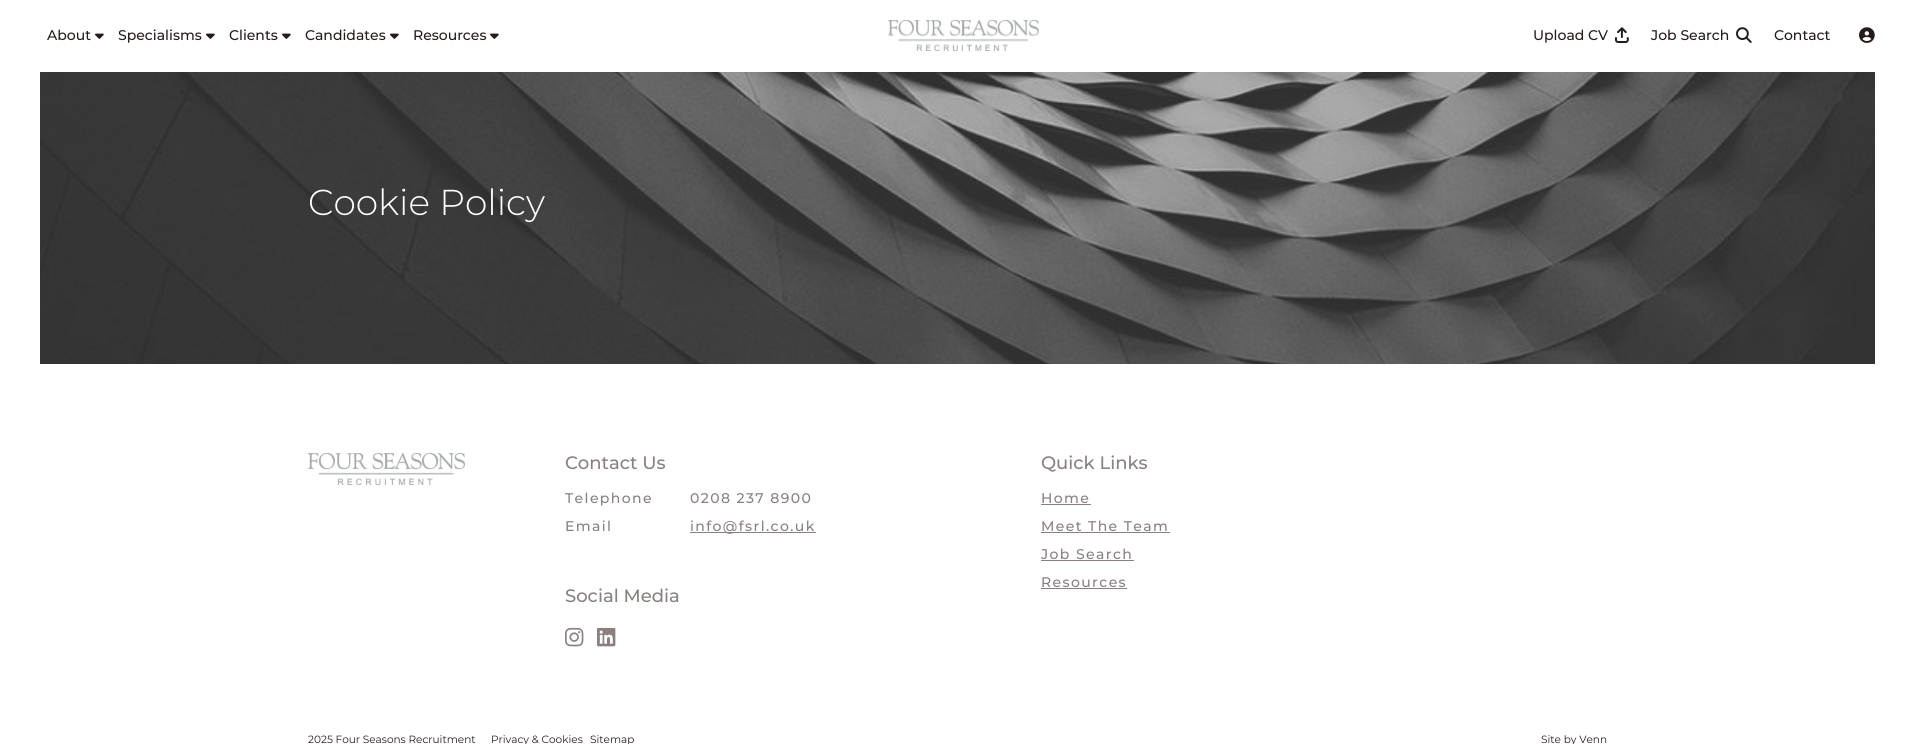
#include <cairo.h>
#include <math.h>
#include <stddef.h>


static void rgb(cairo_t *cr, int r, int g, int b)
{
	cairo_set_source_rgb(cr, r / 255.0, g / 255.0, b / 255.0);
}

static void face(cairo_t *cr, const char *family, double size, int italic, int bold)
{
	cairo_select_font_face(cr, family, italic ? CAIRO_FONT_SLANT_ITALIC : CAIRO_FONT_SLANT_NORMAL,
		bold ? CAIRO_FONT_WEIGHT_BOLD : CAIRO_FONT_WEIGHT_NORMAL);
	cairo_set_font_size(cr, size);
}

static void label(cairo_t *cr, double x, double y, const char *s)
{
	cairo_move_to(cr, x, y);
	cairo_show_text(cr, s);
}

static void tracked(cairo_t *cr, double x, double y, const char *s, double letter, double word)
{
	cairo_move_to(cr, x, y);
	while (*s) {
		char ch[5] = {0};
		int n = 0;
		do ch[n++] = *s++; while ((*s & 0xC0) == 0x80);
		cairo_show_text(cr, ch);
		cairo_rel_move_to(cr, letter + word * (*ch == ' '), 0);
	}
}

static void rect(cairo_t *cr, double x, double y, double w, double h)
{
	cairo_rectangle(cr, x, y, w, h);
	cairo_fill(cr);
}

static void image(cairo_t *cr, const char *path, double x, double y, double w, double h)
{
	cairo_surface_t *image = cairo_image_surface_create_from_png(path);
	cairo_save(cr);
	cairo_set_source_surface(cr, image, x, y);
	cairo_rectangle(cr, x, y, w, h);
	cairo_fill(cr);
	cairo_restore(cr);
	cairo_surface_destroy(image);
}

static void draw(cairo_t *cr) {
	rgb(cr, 255, 255, 255);
	cairo_paint(cr);
	face(cr, "Montserrat Medium", 14, 0, 0);
	rgb(cr, 38, 27, 27);
	label(cr, 47, 40, "About");
	image(cr, "image0.png", 95, 33, 9, 6);
	label(cr, 118, 40, "Specialisms");
	image(cr, "image0.png", 206, 33, 9, 6);
	label(cr, 229, 40, "Clients");
	image(cr, "image0.png", 282, 33, 9, 6);
	label(cr, 305, 40, "Candidates");
	image(cr, "image0.png", 390, 33, 9, 6);
	label(cr, 413, 40, "Resources");
	image(cr, "image0.png", 490, 33, 9, 6);
	image(cr, "image1.png", 888, 20, 151, 31);
	label(cr, 1533, 40, "Upload CV");
	image(cr, "image2.png", 1615, 27, 14, 16);
	label(cr, 1651, 40, "Job Search");
	image(cr, "image3.png", 1736, 27, 16, 16);
	label(cr, 1774, 40, "Contact");
	image(cr, "image4.png", 1859, 27, 16, 16);
	image(cr, "image5.png", 40, 72, 1835, 292);
	face(cr, "Montserrat Light", 36, 0, 0);
	rgb(cr, 255, 255, 255);
	label(cr, 308, 215, "Cookie Policy");
	image(cr, "image6.png", 308, 453, 157, 32);
	face(cr, "Montserrat Medium", 18, 0, 0);
	rgb(cr, 138, 128, 128);
	label(cr, 565, 469, "Contact Us");
	face(cr, "Montserrat Medium", 14, 0, 0);
	tracked(cr, 565, 503, "Telephone", 1.4, 0);
	tracked(cr, 690, 503, "0208 237 8900", 1.4, 0);
	tracked(cr, 565, 531, "Email", 1.4, 0);
	rect(cr, 690, 532, 126, 1);
	tracked(cr, 690, 531, "info@fsrl.co.uk", 1.4, 0);
	face(cr, "Montserrat Medium", 18, 0, 0);
	label(cr, 565, 602, "Social Media");
	image(cr, "image7.png", 565, 627, 19, 20);
	image(cr, "image8.png", 597, 627, 19, 20);
	label(cr, 1041, 469, "Quick Links");
	face(cr, "Montserrat Medium", 14, 0, 0);
	tracked(cr, 1041, 503, "Home", 1.4, 0);
	rect(cr, 1041, 504, 50, 1);
	tracked(cr, 1041, 531, "Meet The Team", 1.4, 0);
	rect(cr, 1041, 532, 129, 1);
	tracked(cr, 1041, 559, "Job Search", 1.4, 0);
	rect(cr, 1041, 560, 93, 1);
	tracked(cr, 1041, 587, "Resources", 1.4, 0);
	rect(cr, 1041, 588, 86, 1);
	face(cr, "Montserrat", 10.5, 0, 0);
	rgb(cr, 38, 27, 27);
	label(cr, 308, 743, "2025 Four Seasons Recruitment");
	label(cr, 491, 743, "Privacy & Cookies");
	label(cr, 590, 743, "Sitemap");
	label(cr, 1541, 743, "Site by Venn");
}

int main(void) {
	cairo_surface_t *surface = cairo_image_surface_create(CAIRO_FORMAT_RGB24, 1915, 744);
	cairo_t *cr = cairo_create(surface);
	cairo_font_options_t *options = cairo_font_options_create();
	cairo_font_options_set_hint_metrics(options, CAIRO_HINT_METRICS_OFF);
	cairo_font_options_set_hint_style(options, CAIRO_HINT_STYLE_NONE);
	cairo_set_font_options(cr, options);
	cairo_set_miter_limit(cr, 4);
	draw(cr);
	cairo_surface_write_to_png(surface, "render.png");
	cairo_font_options_destroy(options);
	cairo_destroy(cr);
	cairo_surface_destroy(surface);
	return 0;
}
